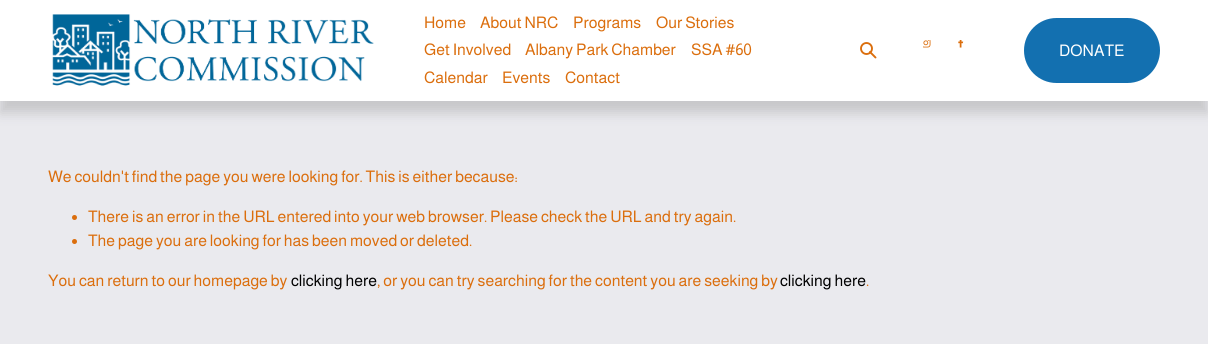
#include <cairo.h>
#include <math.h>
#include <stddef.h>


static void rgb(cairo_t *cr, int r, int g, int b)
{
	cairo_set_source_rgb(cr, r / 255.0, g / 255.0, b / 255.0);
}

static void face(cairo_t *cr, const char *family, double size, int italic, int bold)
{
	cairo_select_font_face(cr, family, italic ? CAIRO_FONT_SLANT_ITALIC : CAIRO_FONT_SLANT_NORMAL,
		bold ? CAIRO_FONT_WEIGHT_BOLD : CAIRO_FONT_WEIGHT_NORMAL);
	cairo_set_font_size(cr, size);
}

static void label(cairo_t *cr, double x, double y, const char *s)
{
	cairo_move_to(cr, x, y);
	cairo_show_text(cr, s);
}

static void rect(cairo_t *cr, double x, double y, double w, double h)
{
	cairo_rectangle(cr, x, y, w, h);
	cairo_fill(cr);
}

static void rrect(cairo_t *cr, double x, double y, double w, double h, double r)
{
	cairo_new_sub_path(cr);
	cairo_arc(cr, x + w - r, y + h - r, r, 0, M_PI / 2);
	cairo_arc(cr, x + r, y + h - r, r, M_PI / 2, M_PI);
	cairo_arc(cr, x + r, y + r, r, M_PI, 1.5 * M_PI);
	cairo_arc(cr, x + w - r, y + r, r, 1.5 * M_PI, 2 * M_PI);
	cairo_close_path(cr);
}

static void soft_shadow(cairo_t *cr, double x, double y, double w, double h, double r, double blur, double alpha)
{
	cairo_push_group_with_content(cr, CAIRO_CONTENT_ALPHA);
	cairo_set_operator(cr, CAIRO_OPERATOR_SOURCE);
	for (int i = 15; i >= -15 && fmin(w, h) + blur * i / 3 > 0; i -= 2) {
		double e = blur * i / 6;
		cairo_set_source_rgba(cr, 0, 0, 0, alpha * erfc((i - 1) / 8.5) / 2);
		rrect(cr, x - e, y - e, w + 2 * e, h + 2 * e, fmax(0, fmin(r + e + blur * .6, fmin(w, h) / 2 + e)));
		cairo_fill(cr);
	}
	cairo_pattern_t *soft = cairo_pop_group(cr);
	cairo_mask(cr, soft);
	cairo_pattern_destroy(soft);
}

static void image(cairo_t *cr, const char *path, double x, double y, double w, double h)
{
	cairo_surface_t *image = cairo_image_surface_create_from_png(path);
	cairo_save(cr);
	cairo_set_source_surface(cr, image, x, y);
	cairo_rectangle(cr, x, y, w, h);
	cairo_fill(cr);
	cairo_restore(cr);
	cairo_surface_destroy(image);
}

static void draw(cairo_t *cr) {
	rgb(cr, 234, 234, 238);
	cairo_paint(cr);
	rgb(cr, 199, 199, 202);
	soft_shadow(cr, 0, 12, 1208, 101, 0, 6, 1);
	rgb(cr, 255, 255, 255);
	rect(cr, 0, 0, 1208, 101);
	image(cr, "image0.png", 52, 14, 322, 72);
	face(cr, "Almarai", 16, 0, 0);
	rgb(cr, 219, 110, 13);
	label(cr, 424, 28, "Home");
	label(cr, 480, 28, "About NRC");
	label(cr, 573, 28, "Programs");
	label(cr, 656, 28, "Our Stories");
	label(cr, 424, 55, "Get Involved");
	label(cr, 525, 55, "Albany Park Chamber");
	label(cr, 691, 55, "SSA #60");
	label(cr, 424, 83, "Calendar");
	label(cr, 502, 83, "Events");
	label(cr, 565, 83, "Contact");
	cairo_new_path(cr);
	cairo_move_to(cr, 870, 52);
	cairo_line_to(cr, 875.5, 57.5);
	cairo_set_line_width(cr, 1.9);
	cairo_set_line_cap(cr, CAIRO_LINE_CAP_ROUND);
	cairo_set_line_join(cr, CAIRO_LINE_JOIN_ROUND);
	cairo_stroke(cr);
	cairo_arc(cr, 866.5, 48.5, 5.5, 0, 2 * M_PI);
	cairo_set_line_cap(cr, CAIRO_LINE_CAP_BUTT);
	cairo_set_line_join(cr, CAIRO_LINE_JOIN_MITER);
	cairo_stroke(cr);
	image(cr, "image1.png", 923, 40, 8, 8);
	image(cr, "image2.png", 958, 40, 6, 8);
	rgb(cr, 19, 112, 176);
	rrect(cr, 1024, 18, 136, 65, 32.5);
	cairo_fill(cr);
	rgb(cr, 255, 255, 255);
	label(cr, 1059, 56, "DONATE");
	rgb(cr, 219, 110, 13);
	label(cr, 48, 182, "We couldn't find the page you were looking for. This is either because:");
	cairo_new_path(cr);
	cairo_arc(cr, 74.5, 217.5, 2.5, 0, 2 * M_PI);
	cairo_fill(cr);
	label(cr, 88, 222, "There is an error in the URL entered into your web browser. Please check the URL and try again.");
	cairo_new_path(cr);
	cairo_arc(cr, 74.5, 241.5, 2.5, 0, 2 * M_PI);
	cairo_fill(cr);
	label(cr, 88, 246, "The page you are looking for has been moved or deleted.");
	label(cr, 48, 286, "You can return to our homepage by");
	rgb(cr, 0, 0, 0);
	label(cr, 291, 286, "clicking here");
	rgb(cr, 219, 110, 13);
	label(cr, 377, 286, ", or you can try searching for the content you are seeking by");
	rgb(cr, 0, 0, 0);
	label(cr, 780, 286, "clicking here");
	rgb(cr, 219, 110, 13);
	label(cr, 866, 286, ".");
}

int main(void) {
	cairo_surface_t *surface = cairo_image_surface_create(CAIRO_FORMAT_RGB24, 1208, 344);
	cairo_t *cr = cairo_create(surface);
	cairo_font_options_t *options = cairo_font_options_create();
	cairo_font_options_set_hint_metrics(options, CAIRO_HINT_METRICS_OFF);
	cairo_font_options_set_hint_style(options, CAIRO_HINT_STYLE_NONE);
	cairo_set_font_options(cr, options);
	cairo_set_miter_limit(cr, 4);
	draw(cr);
	cairo_surface_write_to_png(surface, "render.png");
	cairo_font_options_destroy(options);
	cairo_destroy(cr);
	cairo_surface_destroy(surface);
	return 0;
}
